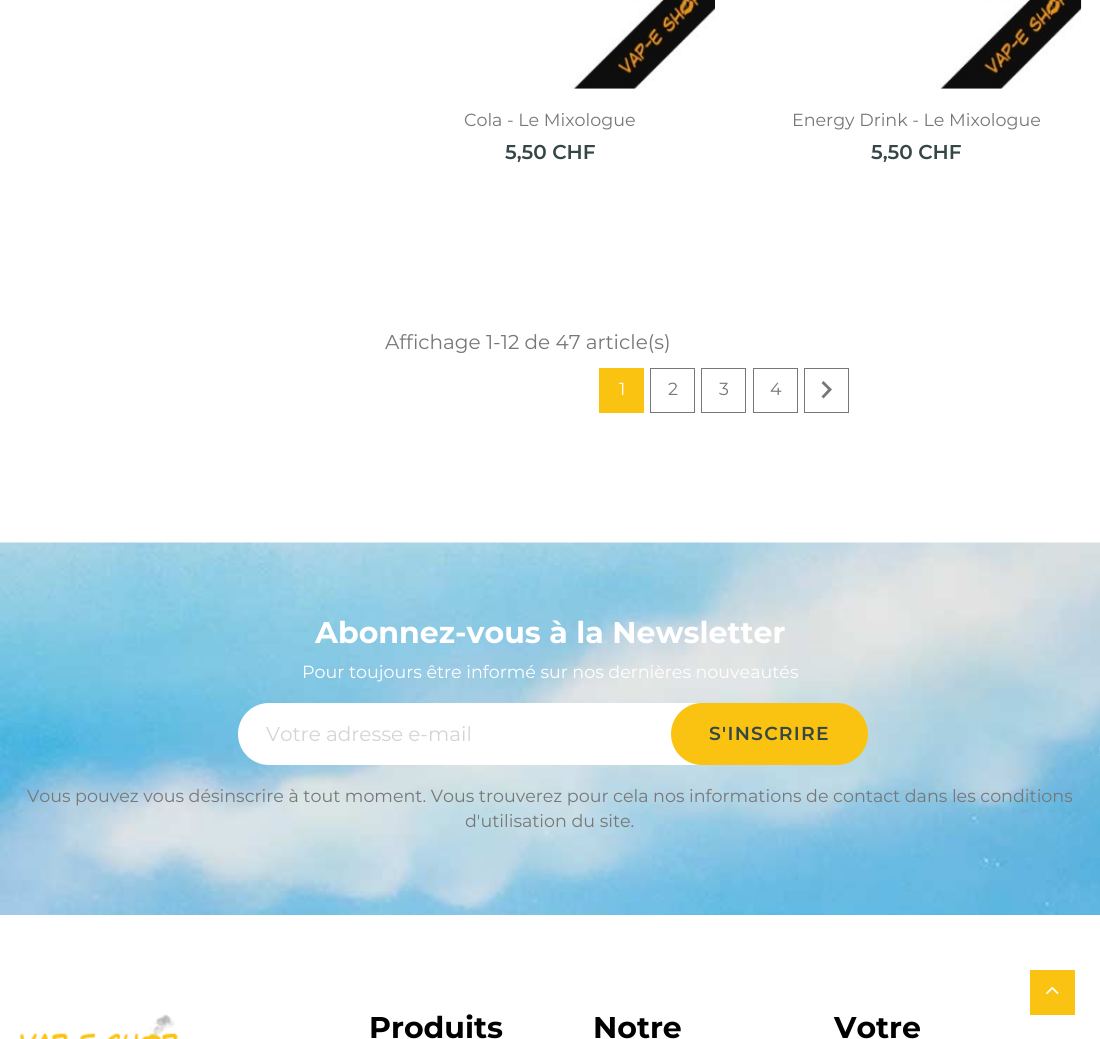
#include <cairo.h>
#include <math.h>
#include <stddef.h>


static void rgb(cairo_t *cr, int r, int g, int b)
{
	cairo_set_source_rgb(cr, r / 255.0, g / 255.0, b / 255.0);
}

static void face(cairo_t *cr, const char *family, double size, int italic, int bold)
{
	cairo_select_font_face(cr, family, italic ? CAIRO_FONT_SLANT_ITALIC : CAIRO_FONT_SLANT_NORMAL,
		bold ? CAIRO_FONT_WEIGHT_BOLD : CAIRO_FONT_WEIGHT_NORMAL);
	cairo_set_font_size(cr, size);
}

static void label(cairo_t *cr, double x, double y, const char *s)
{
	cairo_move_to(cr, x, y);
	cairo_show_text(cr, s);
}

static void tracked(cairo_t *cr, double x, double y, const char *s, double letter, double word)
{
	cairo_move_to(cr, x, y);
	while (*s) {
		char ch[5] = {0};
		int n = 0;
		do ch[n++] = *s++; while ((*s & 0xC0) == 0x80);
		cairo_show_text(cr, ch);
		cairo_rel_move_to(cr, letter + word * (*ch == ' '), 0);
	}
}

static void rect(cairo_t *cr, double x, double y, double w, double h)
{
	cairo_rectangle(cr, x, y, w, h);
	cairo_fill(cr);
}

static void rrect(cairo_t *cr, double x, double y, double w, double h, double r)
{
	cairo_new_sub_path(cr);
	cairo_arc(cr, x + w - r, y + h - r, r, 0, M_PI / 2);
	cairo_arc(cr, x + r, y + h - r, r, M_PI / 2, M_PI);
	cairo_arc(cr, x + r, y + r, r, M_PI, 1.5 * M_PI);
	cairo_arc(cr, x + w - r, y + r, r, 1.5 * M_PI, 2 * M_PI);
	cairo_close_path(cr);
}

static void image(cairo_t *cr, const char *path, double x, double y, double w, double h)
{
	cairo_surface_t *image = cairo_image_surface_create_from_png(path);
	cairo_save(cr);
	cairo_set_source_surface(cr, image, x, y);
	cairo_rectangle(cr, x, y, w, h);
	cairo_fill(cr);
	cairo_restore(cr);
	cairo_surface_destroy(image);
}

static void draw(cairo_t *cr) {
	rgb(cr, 255, 255, 255);
	cairo_paint(cr);
	image(cr, "image0.png", 569, 0, 146, 89);
	face(cr, "Montserrat", 17.5, 0, 0);
	rgb(cr, 119, 119, 119);
	label(cr, 464, 126, "Cola - Le Mixologue");
	face(cr, "Montserrat SemiBold", 20, 0, 0);
	rgb(cr, 52, 70, 69);
	label(cr, 505, 159, "5,50 CHF");
	image(cr, "image1.png", 936, 0, 146, 89);
	face(cr, "Montserrat", 17.5, 0, 0);
	rgb(cr, 119, 119, 119);
	label(cr, 792, 126, "Energy Drink - Le Mixologue");
	face(cr, "Montserrat SemiBold", 20, 0, 0);
	rgb(cr, 52, 70, 69);
	label(cr, 871, 159, "5,50 CHF");
	face(cr, "Montserrat", 20, 0, 0);
	rgb(cr, 119, 119, 119);
	label(cr, 385, 349, "Affichage 1-12 de 47 article(s)");
	rgb(cr, 250, 195, 17);
	rect(cr, 599, 368, 45, 45);
	face(cr, "Montserrat", 17.5, 0, 0);
	rgb(cr, 255, 255, 255);
	label(cr, 619, 395, "1");
	cairo_rectangle(cr, 650.5, 368.5, 44, 44);
	rgb(cr, 119, 119, 119);
	cairo_set_line_width(cr, 1);
	cairo_stroke(cr);
	label(cr, 668, 395, "2");
	cairo_rectangle(cr, 701.5, 368.5, 44, 44);
	cairo_stroke(cr);
	label(cr, 719, 395, "3");
	cairo_rectangle(cr, 753.5, 368.5, 44, 44);
	cairo_stroke(cr);
	label(cr, 770, 395, "4");
	cairo_rectangle(cr, 804.5, 368.5, 44, 44);
	cairo_stroke(cr);
	cairo_new_path(cr);
	cairo_move_to(cr, 821.5, 396.5);
	cairo_line_to(cr, 828, 389.5);
	cairo_line_to(cr, 821.5, 383);
	cairo_line_to(cr, 823.5, 381);
	cairo_line_to(cr, 832, 389.5);
	cairo_line_to(cr, 823.5, 398.5);
	cairo_close_path(cr);
	cairo_fill(cr);
	image(cr, "image2.png", 0, 542, 1100, 373);
	face(cr, "Montserrat", 30, 0, 1);
	rgb(cr, 255, 255, 255);
	label(cr, 315, 643, "Abonnez-vous à la Newsletter");
	face(cr, "Montserrat", 17.5, 0, 0);
	label(cr, 302, 678, "Pour toujours être informé sur nos dernières nouveautés");
	rrect(cr, 238, 703, 625, 62, 31);
	cairo_fill(cr);
	face(cr, "Montserrat", 20, 0, 0);
	rgb(cr, 213, 212, 211);
	label(cr, 266, 741, "Votre adresse e-mail");
	rgb(cr, 250, 195, 17);
	rrect(cr, 671, 703, 197, 62, 31);
	cairo_fill(cr);
	face(cr, "Montserrat SemiBold", 18.75, 0, 0);
	rgb(cr, 52, 70, 69);
	tracked(cr, 709, 740, "S'INSCRIRE", 1.25, 0);
	face(cr, "Montserrat", 17.5, 0, 0);
	rgb(cr, 119, 119, 119);
	label(cr, 27, 802, "Vous pouvez vous désinscrire à tout moment. Vous trouverez pour cela nos informations de contact dans les conditions");
	label(cr, 465, 827, "d'utilisation du site.");
	image(cr, "image3.png", 19, 1014, 159, 25);
	face(cr, "Montserrat", 30, 0, 1);
	rgb(cr, 0, 0, 0);
	label(cr, 369, 1038, "Produits");
	label(cr, 593, 1038, "Notre");
	label(cr, 834, 1038, "Votre");
	rgb(cr, 250, 195, 17);
	rect(cr, 1030, 970, 45, 45);
	image(cr, "image4.png", 1046, 986, 13, 9);
}

int main(void) {
	cairo_surface_t *surface = cairo_image_surface_create(CAIRO_FORMAT_RGB24, 1100, 1039);
	cairo_t *cr = cairo_create(surface);
	cairo_font_options_t *options = cairo_font_options_create();
	cairo_font_options_set_hint_metrics(options, CAIRO_HINT_METRICS_OFF);
	cairo_font_options_set_hint_style(options, CAIRO_HINT_STYLE_NONE);
	cairo_set_font_options(cr, options);
	cairo_set_miter_limit(cr, 4);
	draw(cr);
	cairo_surface_write_to_png(surface, "render.png");
	cairo_font_options_destroy(options);
	cairo_destroy(cr);
	cairo_surface_destroy(surface);
	return 0;
}
